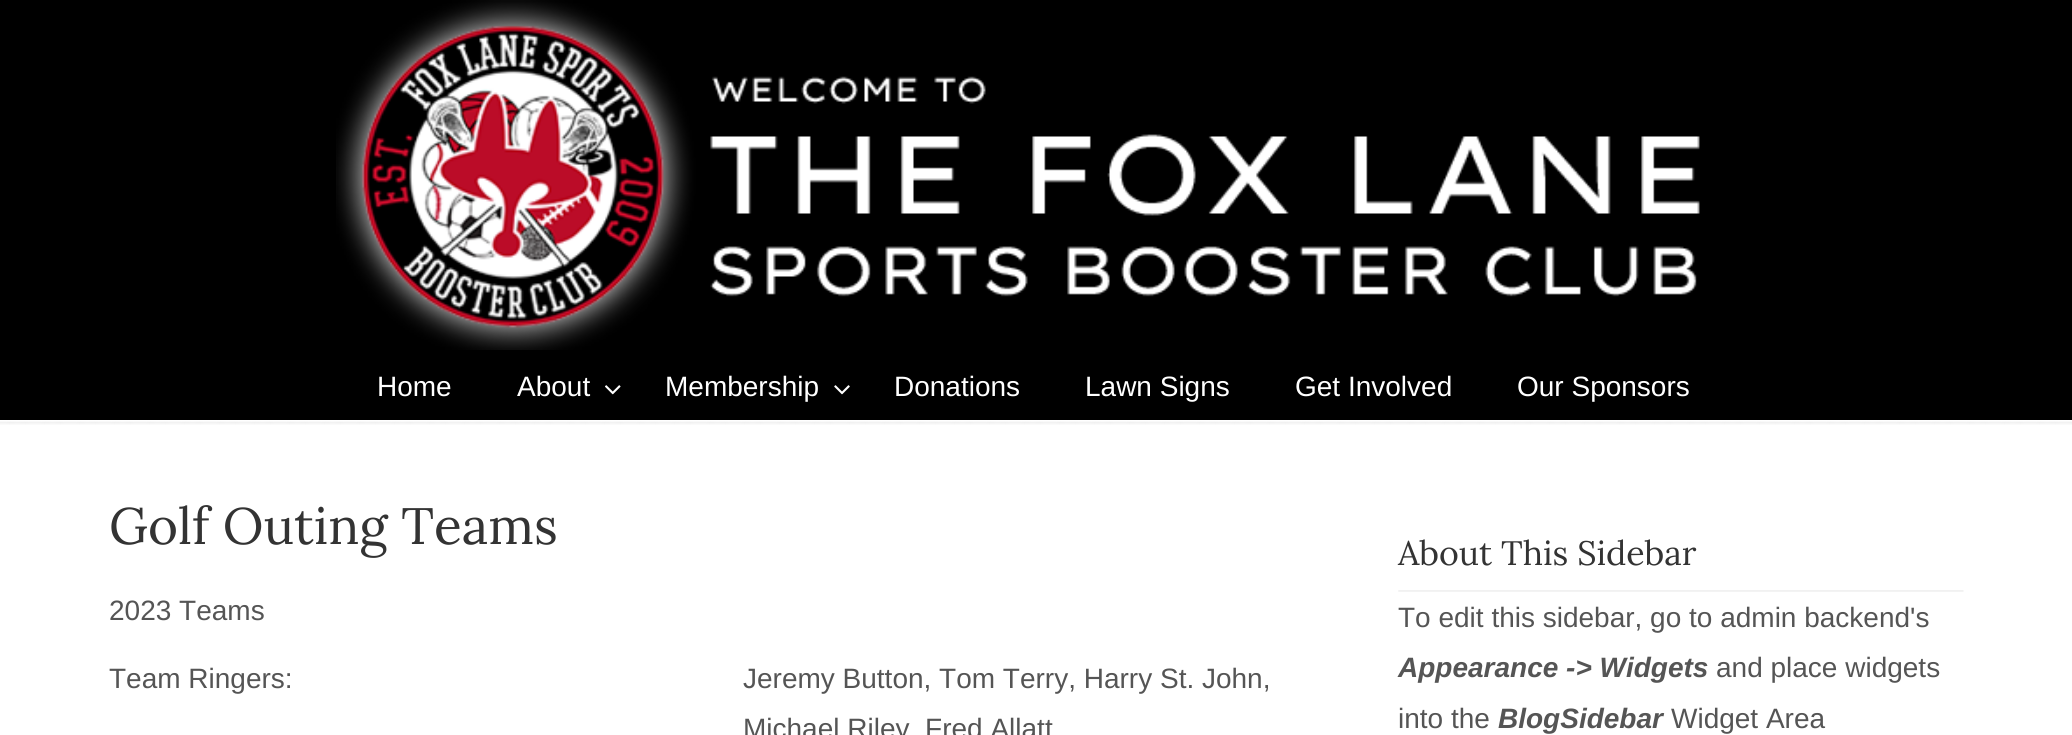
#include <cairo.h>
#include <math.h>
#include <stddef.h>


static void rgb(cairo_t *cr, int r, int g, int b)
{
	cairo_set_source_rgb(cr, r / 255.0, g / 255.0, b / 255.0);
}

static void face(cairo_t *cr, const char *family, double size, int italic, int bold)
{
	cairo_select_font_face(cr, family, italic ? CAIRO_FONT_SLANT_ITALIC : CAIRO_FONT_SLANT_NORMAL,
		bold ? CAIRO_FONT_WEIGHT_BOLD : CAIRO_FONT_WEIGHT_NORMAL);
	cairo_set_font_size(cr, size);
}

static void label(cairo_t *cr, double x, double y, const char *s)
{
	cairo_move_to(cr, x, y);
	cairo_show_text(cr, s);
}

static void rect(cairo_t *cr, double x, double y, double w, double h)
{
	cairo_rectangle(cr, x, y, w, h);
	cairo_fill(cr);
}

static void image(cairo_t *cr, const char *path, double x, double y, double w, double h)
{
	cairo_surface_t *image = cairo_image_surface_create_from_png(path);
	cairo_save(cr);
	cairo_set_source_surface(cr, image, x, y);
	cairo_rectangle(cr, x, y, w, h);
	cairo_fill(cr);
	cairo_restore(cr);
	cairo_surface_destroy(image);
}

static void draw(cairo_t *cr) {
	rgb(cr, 255, 255, 255);
	cairo_paint(cr);
	rgb(cr, 0, 0, 0);
	rect(cr, 0, 0, 2072, 420);
	image(cr, "image0.png", 336, 0, 1364, 350);
	face(cr, "Liberation Sans", 28, 0, 0);
	rgb(cr, 255, 255, 255);
	label(cr, 377, 396, "Home");
	label(cr, 517, 396, "About");
	image(cr, "image1.png", 605, 385, 16, 10);
	label(cr, 665, 396, "Membership");
	image(cr, "image2.png", 834, 385, 16, 10);
	label(cr, 894, 396, "Donations");
	label(cr, 1085, 396, "Lawn Signs");
	label(cr, 1295, 396, "Get Involved");
	label(cr, 1517, 396, "Our Sponsors");
	image(cr, "image3.png", 0, 421, 2072, 4);
	face(cr, "Lora", 51.25, 0, 0);
	rgb(cr, 51, 51, 51);
	label(cr, 109, 544, "Golf Outing Teams");
	face(cr, "Liberation Sans", 28, 0, 0);
	rgb(cr, 85, 85, 85);
	label(cr, 109, 620, "2023 Teams");
	label(cr, 109, 688, "Team Ringers:");
	label(cr, 743, 688, "Jeremy Button, Tom Terry, Harry St. John,");
	label(cr, 743, 738, "Michael Riley, Fred Allatt");
	image(cr, "image4.png", 1398, 590, 566, 2);
	face(cr, "Lora", 33.9, 0, 0);
	rgb(cr, 51, 51, 51);
	label(cr, 1398, 565, "About This Sidebar");
	face(cr, "Liberation Sans", 28, 0, 0);
	rgb(cr, 85, 85, 85);
	label(cr, 1398, 627, "To edit this sidebar, go to admin backend's");
	face(cr, "Liberation Sans", 28, 1, 1);
	label(cr, 1398, 677, "Appearance -> Widgets");
	face(cr, "Liberation Sans", 28, 0, 0);
	label(cr, 1716, 677, "and place widgets");
	label(cr, 1398, 728, "into the");
	face(cr, "Liberation Sans", 28, 1, 1);
	label(cr, 1498, 728, "BlogSidebar");
	face(cr, "Liberation Sans", 28, 0, 0);
	label(cr, 1671, 728, "Widget Area");
}

int main(void) {
	cairo_surface_t *surface = cairo_image_surface_create(CAIRO_FORMAT_RGB24, 2072, 735);
	cairo_t *cr = cairo_create(surface);
	cairo_font_options_t *options = cairo_font_options_create();
	cairo_font_options_set_hint_metrics(options, CAIRO_HINT_METRICS_OFF);
	cairo_font_options_set_hint_style(options, CAIRO_HINT_STYLE_NONE);
	cairo_set_font_options(cr, options);
	cairo_set_miter_limit(cr, 4);
	draw(cr);
	cairo_surface_write_to_png(surface, "render.png");
	cairo_font_options_destroy(options);
	cairo_destroy(cr);
	cairo_surface_destroy(surface);
	return 0;
}
